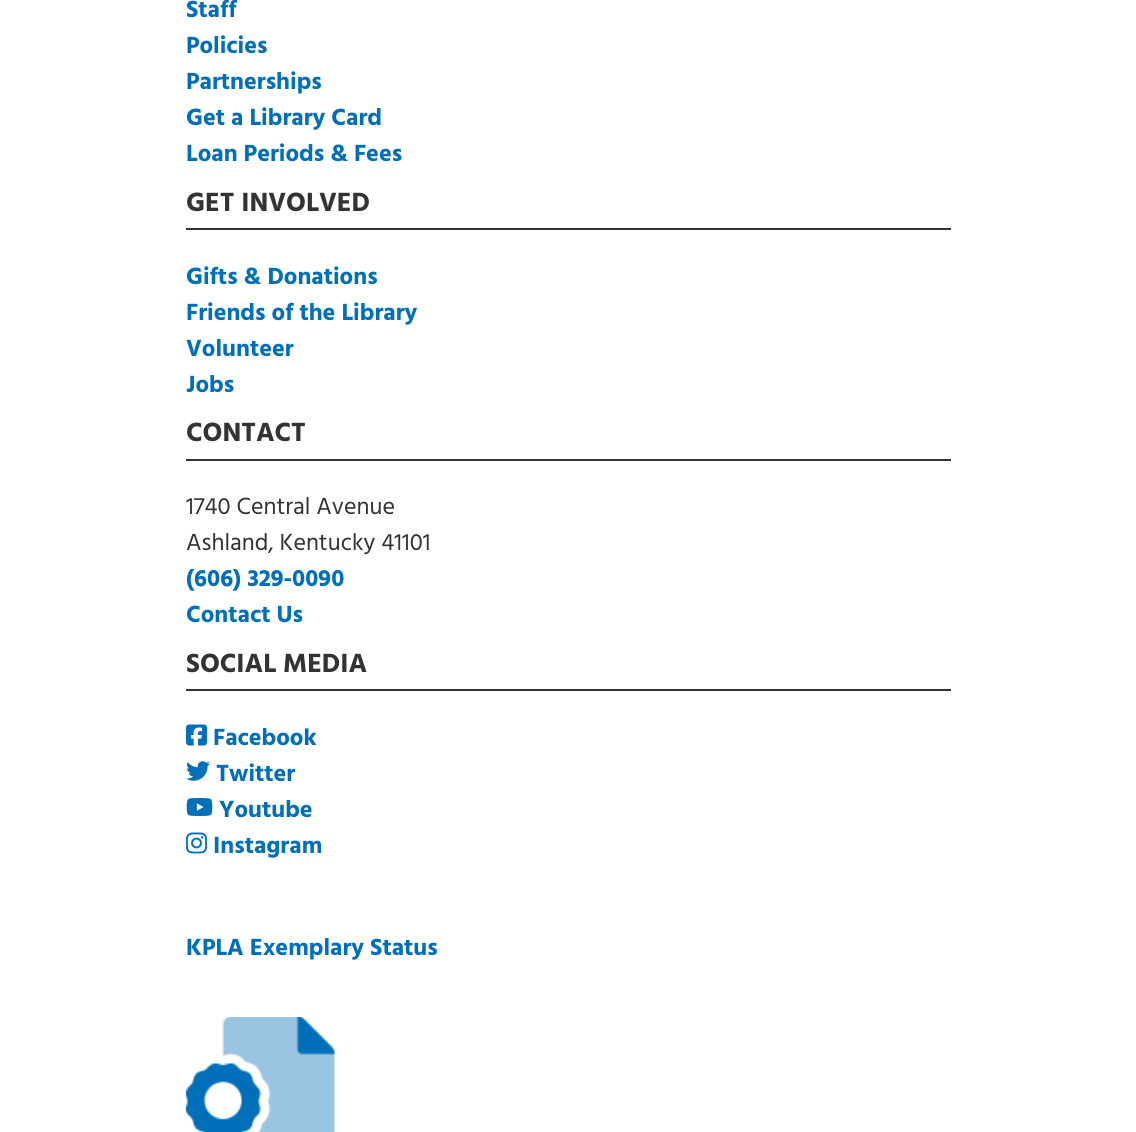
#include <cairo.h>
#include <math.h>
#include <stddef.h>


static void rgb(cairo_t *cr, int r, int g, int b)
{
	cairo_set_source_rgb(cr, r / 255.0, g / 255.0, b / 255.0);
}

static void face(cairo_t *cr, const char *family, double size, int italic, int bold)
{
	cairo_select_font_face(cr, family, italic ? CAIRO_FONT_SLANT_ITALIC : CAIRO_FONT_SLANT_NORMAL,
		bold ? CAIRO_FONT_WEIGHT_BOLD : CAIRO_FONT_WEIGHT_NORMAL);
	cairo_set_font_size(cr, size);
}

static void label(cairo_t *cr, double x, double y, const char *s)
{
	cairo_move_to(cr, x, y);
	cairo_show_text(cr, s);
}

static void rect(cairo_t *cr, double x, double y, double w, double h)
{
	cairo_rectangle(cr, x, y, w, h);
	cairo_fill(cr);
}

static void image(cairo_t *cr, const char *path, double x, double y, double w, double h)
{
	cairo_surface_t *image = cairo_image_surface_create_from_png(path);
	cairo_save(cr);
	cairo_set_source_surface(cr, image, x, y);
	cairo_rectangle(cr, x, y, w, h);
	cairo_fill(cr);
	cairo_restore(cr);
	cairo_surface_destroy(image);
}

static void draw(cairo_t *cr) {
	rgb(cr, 255, 255, 255);
	cairo_paint(cr);
	face(cr, "Hind", 24, 0, 1);
	rgb(cr, 0, 111, 185);
	label(cr, 186, 17, "Staff");
	label(cr, 186, 53, "Policies");
	label(cr, 186, 89, "Partnerships");
	label(cr, 186, 125, "Get a Library Card");
	label(cr, 186, 161, "Loan Periods & Fees");
	rgb(cr, 51, 51, 51);
	rect(cr, 186, 228, 765, 2);
	face(cr, "Hind", 27, 0, 1);
	label(cr, 186, 211, "GET INVOLVED");
	face(cr, "Hind", 24, 0, 1);
	rgb(cr, 0, 111, 185);
	label(cr, 186, 284, "Gifts & Donations");
	label(cr, 186, 320, "Friends of the Library");
	label(cr, 186, 356, "Volunteer");
	label(cr, 186, 392, "Jobs");
	rgb(cr, 51, 51, 51);
	rect(cr, 186, 459, 765, 2);
	face(cr, "Hind", 27, 0, 1);
	label(cr, 186, 441, "CONTACT");
	face(cr, "Hind", 24, 0, 0);
	label(cr, 186, 514, "1740 Central Avenue");
	label(cr, 186, 550, "Ashland, Kentucky 41101");
	face(cr, "Hind", 24, 0, 1);
	rgb(cr, 0, 111, 185);
	label(cr, 186, 586, "(606) 329-0090");
	label(cr, 186, 622, "Contact Us");
	rgb(cr, 51, 51, 51);
	rect(cr, 186, 689, 765, 2);
	face(cr, "Hind", 27, 0, 1);
	label(cr, 186, 672, "SOCIAL MEDIA");
	image(cr, "image0.png", 186, 724, 21, 22);
	face(cr, "Hind", 24, 0, 1);
	rgb(cr, 0, 111, 185);
	label(cr, 213, 745, "Facebook");
	image(cr, "image1.png", 186, 761, 24, 20);
	label(cr, 216, 781, "Twitter");
	image(cr, "image2.png", 186, 798, 27, 18);
	label(cr, 219, 817, "Youtube");
	image(cr, "image3.png", 186, 832, 21, 22);
	label(cr, 213, 853, "Instagram");
	label(cr, 186, 955, "KPLA Exemplary Status");
	image(cr, "image4.png", 186, 1017, 149, 115);
}

int main(void) {
	cairo_surface_t *surface = cairo_image_surface_create(CAIRO_FORMAT_RGB24, 1136, 1132);
	cairo_t *cr = cairo_create(surface);
	cairo_font_options_t *options = cairo_font_options_create();
	cairo_font_options_set_hint_metrics(options, CAIRO_HINT_METRICS_OFF);
	cairo_font_options_set_hint_style(options, CAIRO_HINT_STYLE_NONE);
	cairo_set_font_options(cr, options);
	cairo_set_miter_limit(cr, 4);
	draw(cr);
	cairo_surface_write_to_png(surface, "render.png");
	cairo_font_options_destroy(options);
	cairo_destroy(cr);
	cairo_surface_destroy(surface);
	return 0;
}
